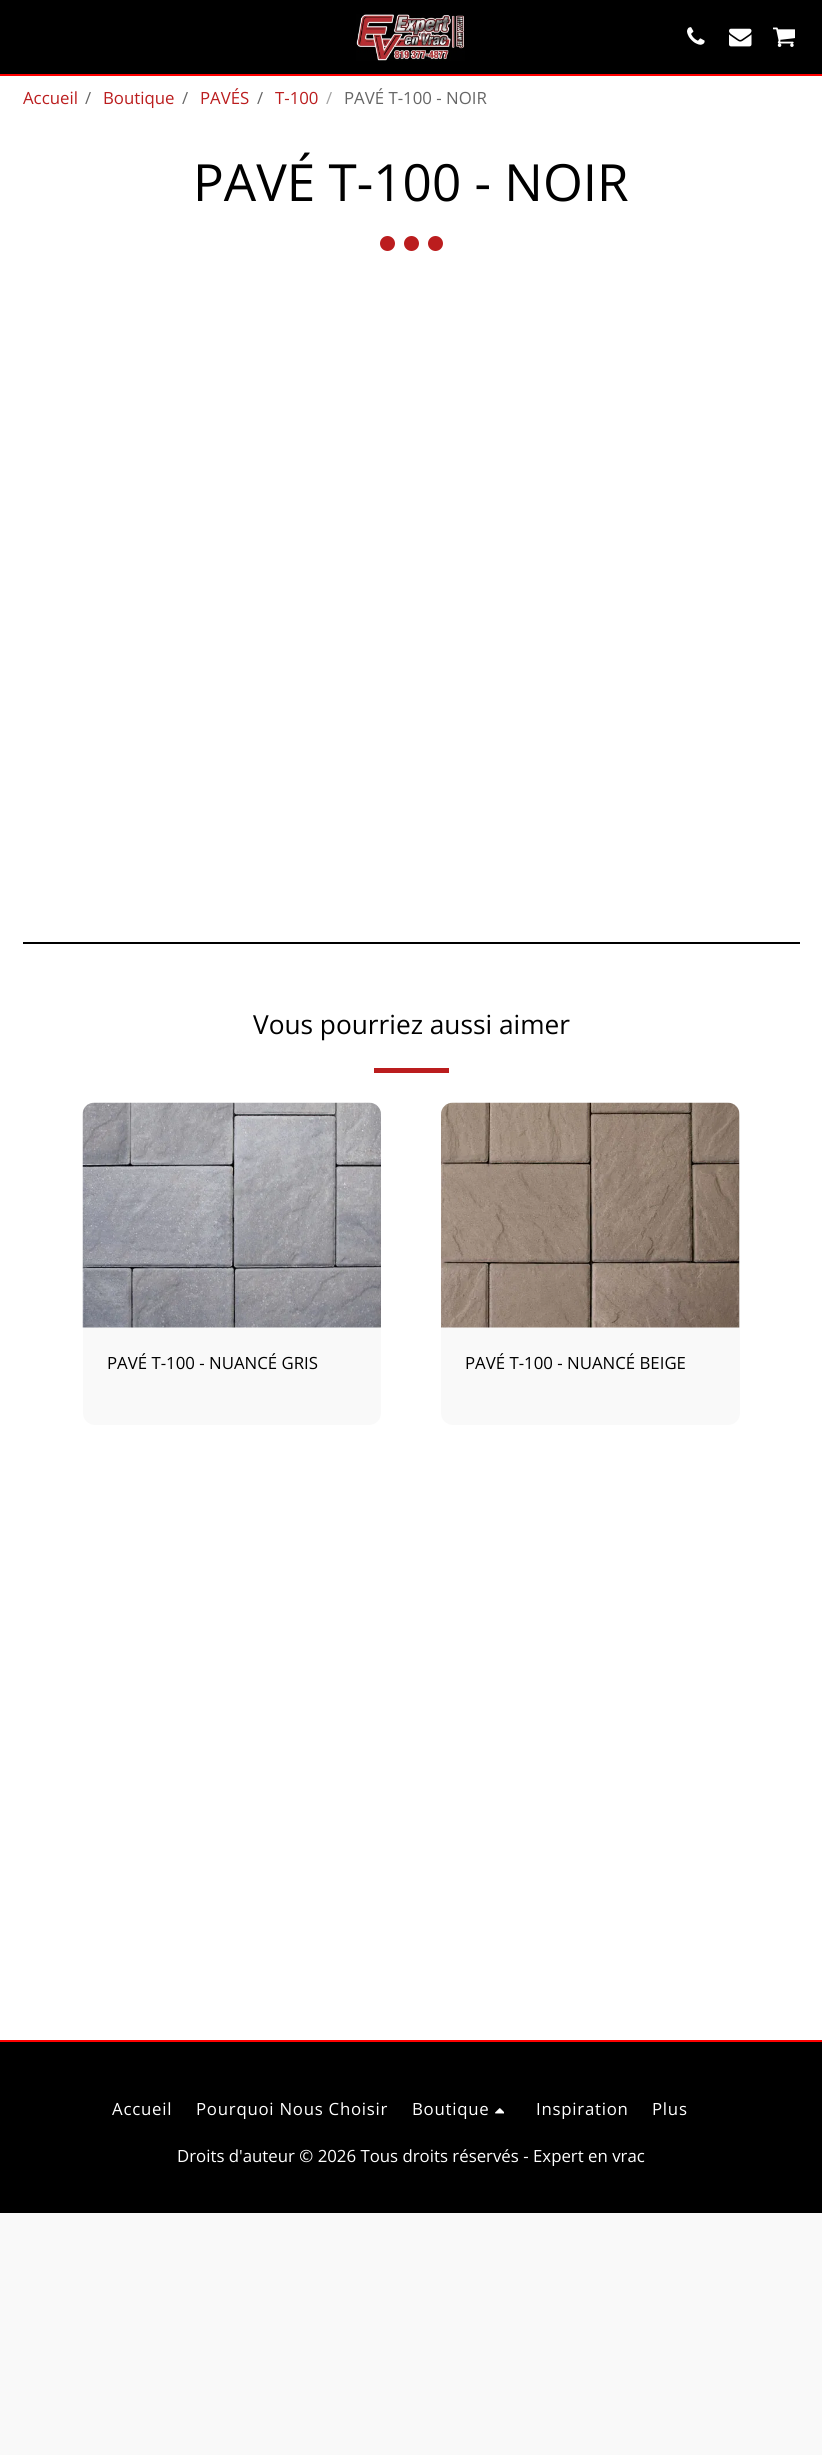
#include <cairo.h>
#include <math.h>
#include <stddef.h>


static void rgb(cairo_t *cr, int r, int g, int b)
{
	cairo_set_source_rgb(cr, r / 255.0, g / 255.0, b / 255.0);
}

static void face(cairo_t *cr, const char *family, double size, int italic, int bold)
{
	cairo_select_font_face(cr, family, italic ? CAIRO_FONT_SLANT_ITALIC : CAIRO_FONT_SLANT_NORMAL,
		bold ? CAIRO_FONT_WEIGHT_BOLD : CAIRO_FONT_WEIGHT_NORMAL);
	cairo_set_font_size(cr, size);
}

static void label(cairo_t *cr, double x, double y, const char *s)
{
	cairo_move_to(cr, x, y);
	cairo_show_text(cr, s);
}

static void tracked(cairo_t *cr, double x, double y, const char *s, double letter, double word)
{
	cairo_move_to(cr, x, y);
	while (*s) {
		char ch[5] = {0};
		int n = 0;
		do ch[n++] = *s++; while ((*s & 0xC0) == 0x80);
		cairo_show_text(cr, ch);
		cairo_rel_move_to(cr, letter + word * (*ch == ' '), 0);
	}
}

static void rect(cairo_t *cr, double x, double y, double w, double h)
{
	cairo_rectangle(cr, x, y, w, h);
	cairo_fill(cr);
}

static void rrect(cairo_t *cr, double x, double y, double w, double h, double r)
{
	cairo_new_sub_path(cr);
	cairo_arc(cr, x + w - r, y + h - r, r, 0, M_PI / 2);
	cairo_arc(cr, x + r, y + h - r, r, M_PI / 2, M_PI);
	cairo_arc(cr, x + r, y + r, r, M_PI, 1.5 * M_PI);
	cairo_arc(cr, x + w - r, y + r, r, 1.5 * M_PI, 2 * M_PI);
	cairo_close_path(cr);
}

static void image(cairo_t *cr, const char *path, double x, double y, double w, double h)
{
	cairo_surface_t *image = cairo_image_surface_create_from_png(path);
	cairo_save(cr);
	cairo_set_source_surface(cr, image, x, y);
	cairo_rectangle(cr, x, y, w, h);
	cairo_fill(cr);
	cairo_restore(cr);
	cairo_surface_destroy(image);
}

static void draw(cairo_t *cr) {
	rgb(cr, 249, 249, 249);
	cairo_paint(cr);
	rgb(cr, 0, 0, 0);
	rect(cr, 0, 0, 822, 74);
	rgb(cr, 255, 0, 0);
	rect(cr, 0, 74, 822, 2);
	image(cr, "image0.png", 356, 14, 109, 47);
	image(cr, "image1.png", 687, 27, 18, 18);
	image(cr, "image2.png", 729, 28, 23, 19);
	image(cr, "image3.png", 773, 27, 22, 20);
	rgb(cr, 255, 255, 255);
	rect(cr, 0, 76, 822, 1964);
	face(cr, "Open Sans", 16.8, 0, 0);
	rgb(cr, 187, 29, 30);
	label(cr, 23, 104, "Accueil");
	rgb(cr, 102, 102, 102);
	label(cr, 85, 104, "/");
	rgb(cr, 187, 29, 30);
	label(cr, 103, 104, "Boutique");
	rgb(cr, 102, 102, 102);
	label(cr, 182, 104, "/");
	rgb(cr, 187, 29, 30);
	label(cr, 200, 104, "PAVÉS");
	rgb(cr, 102, 102, 102);
	label(cr, 257, 104, "/");
	rgb(cr, 187, 29, 30);
	label(cr, 275, 104, "T-100");
	rgb(cr, 163, 163, 163);
	label(cr, 326, 104, "/");
	rgb(cr, 102, 102, 102);
	label(cr, 344, 104, "PAVÉ T-100 - NOIR");
	face(cr, "Open Sans", 51.25, 0, 0);
	rgb(cr, 0, 0, 0);
	label(cr, 193, 201, "PAVÉ T-100 - NOIR");
	rgb(cr, 187, 29, 30);
	cairo_new_path(cr);
	cairo_arc(cr, 387.5, 243.5, 7.5, 0, 2 * M_PI);
	cairo_fill(cr);
	cairo_arc(cr, 411.5, 243.5, 7.5, 0, 2 * M_PI);
	cairo_fill(cr);
	cairo_arc(cr, 435.5, 243.5, 7.5, 0, 2 * M_PI);
	cairo_fill(cr);
	rgb(cr, 0, 0, 0);
	rect(cr, 23, 942, 777, 2);
	face(cr, "Open Sans", 26.25, 0, 0);
	label(cr, 253, 1034, "Vous pourriez aussi aimer");
	rgb(cr, 187, 29, 30);
	rect(cr, 374, 1068, 75, 5);
	rgb(cr, 249, 249, 249);
	rrect(cr, 83, 1103, 298, 322, 12);
	cairo_fill(cr);
	image(cr, "image4.png", 82, 1102, 299, 226);
	face(cr, "Open Sans", 16.8, 0, 0);
	rgb(cr, 0, 0, 0);
	label(cr, 107, 1369, "PAVÉ T-100 - NUANCÉ GRIS");
	rgb(cr, 249, 249, 249);
	rrect(cr, 441, 1103, 299, 322, 12);
	cairo_fill(cr);
	image(cr, "image5.png", 441, 1102, 299, 226);
	rgb(cr, 0, 0, 0);
	label(cr, 465, 1369, "PAVÉ T-100 - NUANCÉ BEIGE");
	rgb(cr, 255, 0, 0);
	rect(cr, 0, 2040, 822, 2);
	rgb(cr, 0, 0, 0);
	rect(cr, 0, 2042, 822, 171);
	rgb(cr, 255, 255, 255);
	tracked(cr, 112, 2115, "Accueil", 0.75, 0);
	tracked(cr, 196, 2115, "Pourquoi Nous Choisir", 0.75, 0);
	tracked(cr, 412, 2115, "Boutique", 0.75, 0);
	image(cr, "image6.png", 495, 2108, 9, 6);
	tracked(cr, 536, 2115, "Inspiration", 0.75, 0);
	tracked(cr, 652, 2115, "Plus", 0.75, 0);
	label(cr, 177, 2162, "Droits d'auteur © 2026 Tous droits réservés -");
	label(cr, 533, 2162, "Expert en vrac");
}

int main(void) {
	cairo_surface_t *surface = cairo_image_surface_create(CAIRO_FORMAT_RGB24, 822, 2455);
	cairo_t *cr = cairo_create(surface);
	cairo_font_options_t *options = cairo_font_options_create();
	cairo_font_options_set_hint_metrics(options, CAIRO_HINT_METRICS_OFF);
	cairo_font_options_set_hint_style(options, CAIRO_HINT_STYLE_NONE);
	cairo_set_font_options(cr, options);
	cairo_set_miter_limit(cr, 4);
	draw(cr);
	cairo_surface_write_to_png(surface, "render.png");
	cairo_font_options_destroy(options);
	cairo_destroy(cr);
	cairo_surface_destroy(surface);
	return 0;
}
